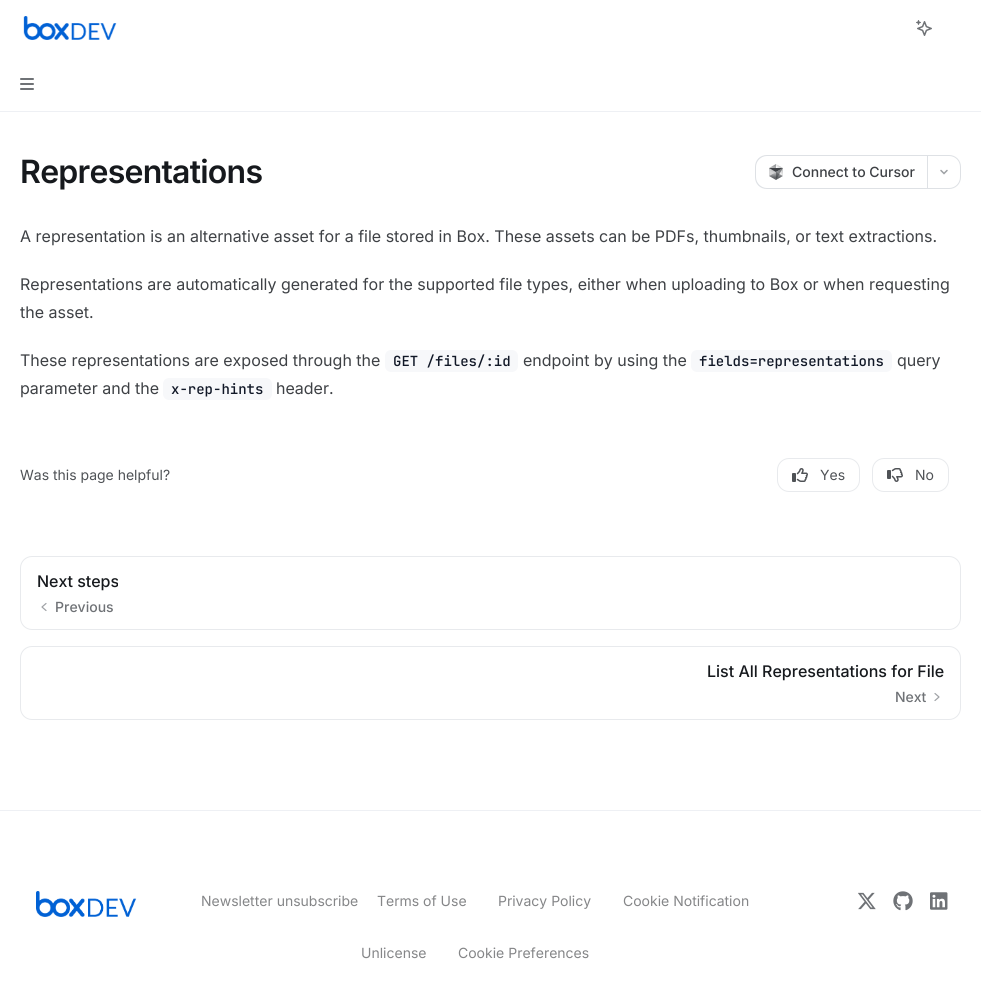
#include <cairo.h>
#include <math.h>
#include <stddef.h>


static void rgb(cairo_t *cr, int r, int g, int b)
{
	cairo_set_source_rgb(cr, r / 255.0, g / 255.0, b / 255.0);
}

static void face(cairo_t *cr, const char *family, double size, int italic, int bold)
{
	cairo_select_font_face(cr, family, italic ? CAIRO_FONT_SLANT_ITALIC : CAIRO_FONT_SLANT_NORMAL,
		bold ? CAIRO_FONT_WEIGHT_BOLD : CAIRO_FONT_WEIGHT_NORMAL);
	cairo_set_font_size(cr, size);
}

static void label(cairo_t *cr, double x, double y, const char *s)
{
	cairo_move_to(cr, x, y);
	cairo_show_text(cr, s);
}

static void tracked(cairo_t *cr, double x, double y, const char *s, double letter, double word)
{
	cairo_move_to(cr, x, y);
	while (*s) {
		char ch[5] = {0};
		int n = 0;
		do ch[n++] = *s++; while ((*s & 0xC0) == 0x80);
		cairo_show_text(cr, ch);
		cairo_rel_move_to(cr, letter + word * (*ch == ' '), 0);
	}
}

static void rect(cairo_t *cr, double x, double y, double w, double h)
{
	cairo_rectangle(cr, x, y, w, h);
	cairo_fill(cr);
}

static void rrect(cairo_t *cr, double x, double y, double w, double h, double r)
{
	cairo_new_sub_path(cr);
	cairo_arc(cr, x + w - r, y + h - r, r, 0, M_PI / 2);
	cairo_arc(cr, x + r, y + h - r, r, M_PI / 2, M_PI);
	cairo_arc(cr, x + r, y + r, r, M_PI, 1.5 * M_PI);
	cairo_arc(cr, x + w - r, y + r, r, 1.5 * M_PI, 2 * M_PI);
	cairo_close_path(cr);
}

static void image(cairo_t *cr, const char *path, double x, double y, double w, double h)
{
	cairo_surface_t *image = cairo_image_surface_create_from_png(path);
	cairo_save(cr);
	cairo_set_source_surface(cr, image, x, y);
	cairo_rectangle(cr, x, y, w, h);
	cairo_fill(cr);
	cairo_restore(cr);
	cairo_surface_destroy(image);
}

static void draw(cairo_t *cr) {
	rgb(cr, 255, 255, 255);
	cairo_paint(cr);
	image(cr, "image0.png", 23, 16, 94, 24);
	image(cr, "image1.png", 916, 20, 16, 16);
	image(cr, "image2.png", 20, 78, 14, 12);
	rgb(cr, 238, 240, 244);
	rect(cr, 0, 111, 981, 1);
	face(cr, "Inter SemiBold", 32, 0, 0);
	rgb(cr, 22, 25, 29);
	tracked(cr, 20, 183, "Representations", -0.75, 0);
	rgb(cr, 222, 225, 229);
	cairo_set_fill_rule(cr, CAIRO_FILL_RULE_EVEN_ODD);
	cairo_new_path(cr);
	cairo_move_to(cr, 767, 155);
	cairo_line_to(cr, 927, 155);
	cairo_line_to(cr, 927, 189);
	cairo_line_to(cr, 767, 189);
	cairo_curve_to(cr, 760, 189, 755, 184, 755, 177);
	cairo_line_to(cr, 755, 167);
	cairo_curve_to(cr, 755, 160, 760, 155, 767, 155);
	cairo_close_path(cr);
	cairo_move_to(cr, 767, 156);
	cairo_line_to(cr, 927, 156);
	cairo_line_to(cr, 927, 188);
	cairo_line_to(cr, 767, 188);
	cairo_curve_to(cr, 761, 188, 756, 183, 756, 177);
	cairo_line_to(cr, 756, 167);
	cairo_curve_to(cr, 756, 161, 761, 156, 767, 156);
	cairo_close_path(cr);
	cairo_fill(cr);
	image(cr, "image3.png", 769, 164, 14, 16);
	face(cr, "Inter Medium", 14, 0, 0);
	rgb(cr, 62, 65, 69);
	label(cr, 792, 177, "Connect to Cursor");
	cairo_new_path(cr);
	cairo_move_to(cr, 927.5, 155.5);
	cairo_line_to(cr, 949, 155.5);
	cairo_curve_to(cr, 955.5, 155.5, 960.5, 160.5, 960.5, 167);
	cairo_line_to(cr, 960.5, 177);
	cairo_curve_to(cr, 960.5, 183.5, 955.5, 188.5, 949, 188.5);
	cairo_line_to(cr, 927.5, 188.5);
	cairo_close_path(cr);
	rgb(cr, 222, 225, 229);
	cairo_set_line_width(cr, 1);
	cairo_stroke(cr);
	cairo_new_path(cr);
	cairo_move_to(cr, 947, 170.5);
	cairo_line_to(cr, 944, 173.5);
	cairo_line_to(cr, 941, 170.5);
	rgb(cr, 158, 161, 165);
	cairo_set_line_width(cr, 1.5);
	cairo_set_line_cap(cr, CAIRO_LINE_CAP_ROUND);
	cairo_stroke(cr);
	face(cr, "Inter", 16, 0, 0);
	rgb(cr, 62, 65, 69);
	label(cr, 20, 242, "A representation is an alternative asset for a file stored in Box. These assets can be PDFs, thumbnails, or text extractions.");
	label(cr, 20, 290, "Representations are automatically generated for the supported file types, either when uploading to Box or when requesting");
	label(cr, 20, 318, "the asset.");
	label(cr, 20, 366, "These representations are exposed through the");
	rgb(cr, 247, 248, 250);
	rrect(cr, 385, 350, 133, 22, 6);
	cairo_fill(cr);
	face(cr, "JetBrains Mono Medium", 14, 0, 0);
	rgb(cr, 17, 24, 39);
	label(cr, 393, 366, "GET /files/:id");
	face(cr, "Inter", 16, 0, 0);
	rgb(cr, 62, 65, 69);
	label(cr, 523, 366, "endpoint by using the");
	rgb(cr, 247, 248, 250);
	rrect(cr, 691, 350, 201, 22, 6);
	cairo_fill(cr);
	face(cr, "JetBrains Mono Medium", 14, 0, 0);
	rgb(cr, 17, 24, 39);
	label(cr, 699, 366, "fields=representations");
	face(cr, "Inter", 16, 0, 0);
	rgb(cr, 62, 65, 69);
	label(cr, 897, 366, "query");
	label(cr, 20, 394, "parameter and the");
	rgb(cr, 247, 248, 250);
	rrect(cr, 163, 378, 109, 22, 6);
	cairo_fill(cr);
	face(cr, "JetBrains Mono Medium", 14, 0, 0);
	rgb(cr, 17, 24, 39);
	label(cr, 171, 394, "x-rep-hints");
	face(cr, "Inter", 16, 0, 0);
	rgb(cr, 62, 65, 69);
	label(cr, 276, 394, "header.");
	face(cr, "Inter", 14, 0, 0);
	rgb(cr, 79, 82, 86);
	label(cr, 20, 480, "Was this page helpful?");
	rrect(cr, 777.5, 458.5, 82, 33, 11.5);
	rgb(cr, 232, 234, 237);
	cairo_set_line_width(cr, 1);
	cairo_set_line_cap(cr, CAIRO_LINE_CAP_BUTT);
	cairo_stroke(cr);
	image(cr, "image4.png", 792, 468, 16, 14);
	rgb(cr, 79, 82, 86);
	label(cr, 820, 480, "Yes");
	rrect(cr, 872.5, 458.5, 76, 33, 11.5);
	rgb(cr, 232, 234, 237);
	cairo_stroke(cr);
	image(cr, "image5.png", 887, 468, 16, 14);
	rgb(cr, 79, 82, 86);
	label(cr, 915, 480, "No");
	rrect(cr, 20.5, 556.5, 940, 73, 11.5);
	rgb(cr, 232, 234, 237);
	cairo_stroke(cr);
	face(cr, "Inter Medium", 16, 0, 0);
	rgb(cr, 22, 25, 29);
	label(cr, 37, 587, "Next steps");
	cairo_new_path(cr);
	cairo_move_to(cr, 46, 610.5);
	cairo_line_to(cr, 42, 607);
	cairo_line_to(cr, 46, 603.5);
	rgb(cr, 158, 161, 165);
	cairo_set_line_width(cr, 1.2);
	cairo_set_line_cap(cr, CAIRO_LINE_CAP_ROUND);
	cairo_set_line_join(cr, CAIRO_LINE_JOIN_ROUND);
	cairo_stroke(cr);
	face(cr, "Inter Medium", 14, 0, 0);
	rgb(cr, 111, 114, 118);
	label(cr, 55, 612, "Previous");
	rrect(cr, 20.5, 646.5, 940, 73, 11.5);
	rgb(cr, 232, 234, 237);
	cairo_set_line_width(cr, 1);
	cairo_set_line_cap(cr, CAIRO_LINE_CAP_BUTT);
	cairo_set_line_join(cr, CAIRO_LINE_JOIN_MITER);
	cairo_stroke(cr);
	face(cr, "Inter Medium", 16, 0, 0);
	rgb(cr, 22, 25, 29);
	label(cr, 707, 677, "List All Representations for File");
	face(cr, "Inter Medium", 14, 0, 0);
	rgb(cr, 111, 114, 118);
	label(cr, 895, 702, "Next");
	cairo_new_path(cr);
	cairo_move_to(cr, 935, 700.5);
	cairo_line_to(cr, 939, 697);
	cairo_line_to(cr, 935, 693.5);
	rgb(cr, 158, 161, 165);
	cairo_set_line_width(cr, 1.2);
	cairo_set_line_cap(cr, CAIRO_LINE_CAP_ROUND);
	cairo_set_line_join(cr, CAIRO_LINE_JOIN_ROUND);
	cairo_stroke(cr);
	rgb(cr, 238, 240, 244);
	rect(cr, 0, 810, 981, 1);
	image(cr, "image6.png", 36, 891, 101, 26);
	face(cr, "Inter", 14, 0, 0);
	rgb(cr, 133, 134, 136);
	label(cr, 201, 906, "Newsletter unsubscribe");
	label(cr, 377, 906, "Terms of Use");
	label(cr, 498, 906, "Privacy Policy");
	label(cr, 623, 906, "Cookie Notification");
	label(cr, 361, 958, "Unlicense");
	label(cr, 458, 958, "Cookie Preferences");
	image(cr, "image7.png", 858, 892, 18, 18);
	image(cr, "image8.png", 893, 891, 20, 20);
	image(cr, "image9.png", 930, 892, 18, 18);
}

int main(void) {
	cairo_surface_t *surface = cairo_image_surface_create(CAIRO_FORMAT_RGB24, 981, 991);
	cairo_t *cr = cairo_create(surface);
	cairo_font_options_t *options = cairo_font_options_create();
	cairo_font_options_set_hint_metrics(options, CAIRO_HINT_METRICS_OFF);
	cairo_font_options_set_hint_style(options, CAIRO_HINT_STYLE_NONE);
	cairo_set_font_options(cr, options);
	cairo_set_miter_limit(cr, 4);
	draw(cr);
	cairo_surface_write_to_png(surface, "render.png");
	cairo_font_options_destroy(options);
	cairo_destroy(cr);
	cairo_surface_destroy(surface);
	return 0;
}
